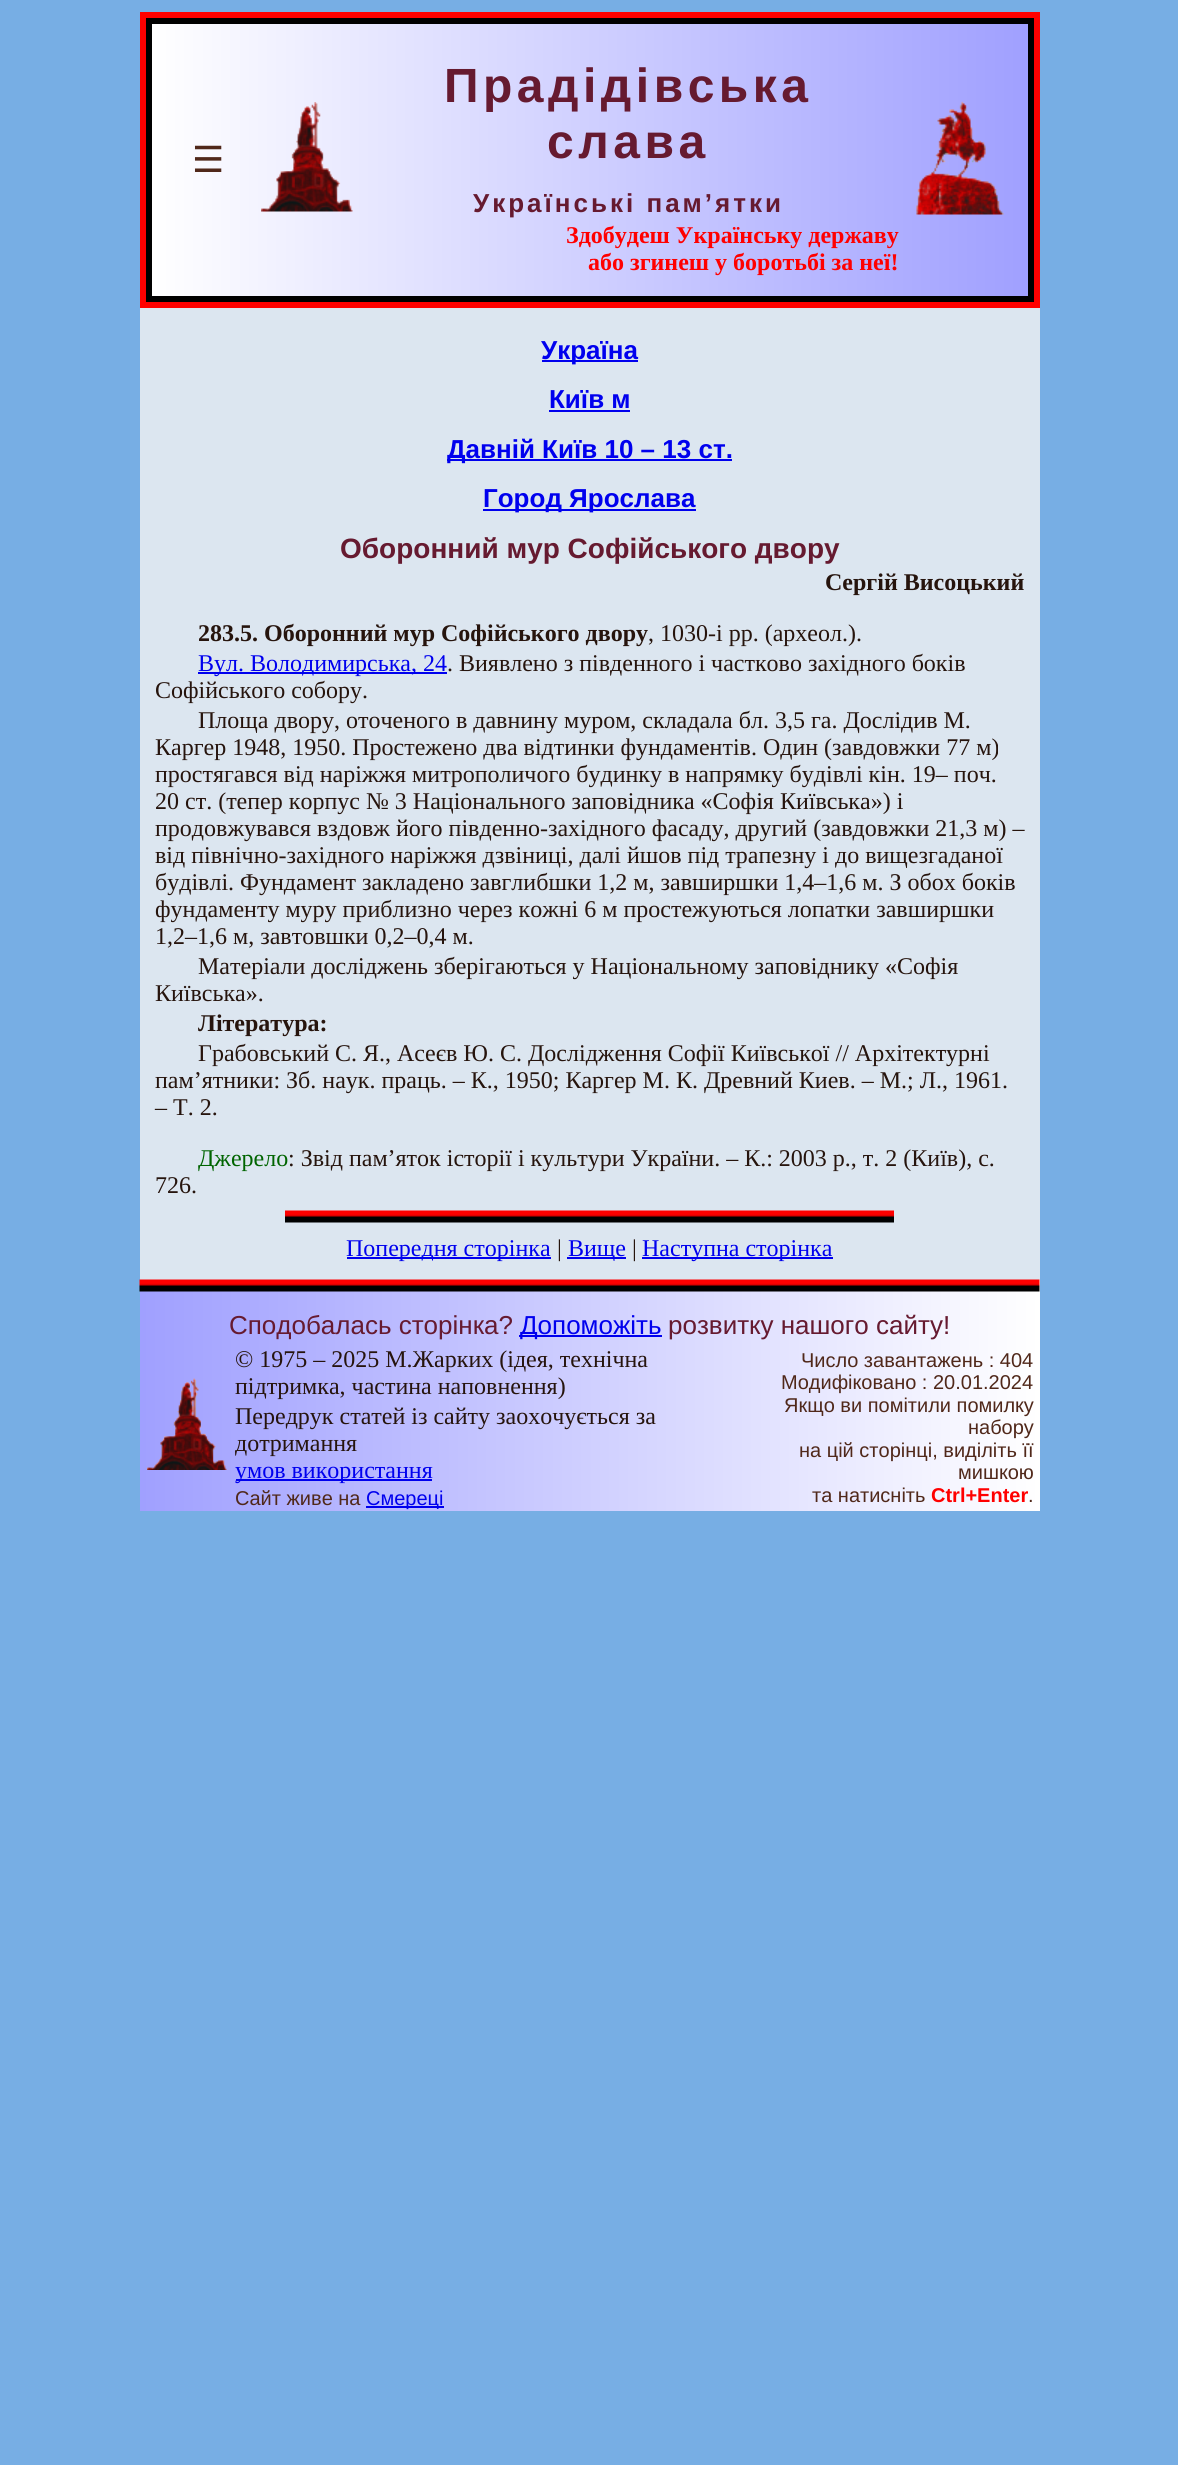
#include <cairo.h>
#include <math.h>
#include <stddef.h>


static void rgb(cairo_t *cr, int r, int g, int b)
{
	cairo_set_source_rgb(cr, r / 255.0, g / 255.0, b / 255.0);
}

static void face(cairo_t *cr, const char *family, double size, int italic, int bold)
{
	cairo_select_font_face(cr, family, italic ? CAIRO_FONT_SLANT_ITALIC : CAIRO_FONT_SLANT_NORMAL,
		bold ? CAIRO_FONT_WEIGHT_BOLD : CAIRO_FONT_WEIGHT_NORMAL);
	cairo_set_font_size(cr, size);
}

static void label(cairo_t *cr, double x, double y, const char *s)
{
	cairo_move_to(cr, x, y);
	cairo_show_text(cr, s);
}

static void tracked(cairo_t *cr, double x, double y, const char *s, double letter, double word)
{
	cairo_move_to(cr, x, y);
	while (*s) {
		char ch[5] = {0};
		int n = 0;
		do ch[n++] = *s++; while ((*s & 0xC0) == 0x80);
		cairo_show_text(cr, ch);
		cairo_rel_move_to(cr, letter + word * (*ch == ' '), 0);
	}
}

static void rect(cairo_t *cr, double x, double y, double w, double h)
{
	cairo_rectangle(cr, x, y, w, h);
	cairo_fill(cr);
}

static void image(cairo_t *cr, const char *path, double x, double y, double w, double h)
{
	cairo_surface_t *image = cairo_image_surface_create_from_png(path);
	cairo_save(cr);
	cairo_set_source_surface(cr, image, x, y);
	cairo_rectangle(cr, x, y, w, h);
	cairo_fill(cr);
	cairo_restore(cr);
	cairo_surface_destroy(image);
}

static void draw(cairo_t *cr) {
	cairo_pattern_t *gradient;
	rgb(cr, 119, 174, 228);
	cairo_paint(cr);
	rgb(cr, 255, 0, 0);
	rect(cr, 140, 12, 900, 296);
	gradient = cairo_pattern_create_linear(152, 160, 1028, 160);
	cairo_pattern_add_color_stop_rgba(gradient, 0, 1, 1, 1, 1);
	cairo_pattern_add_color_stop_rgba(gradient, 1, 0.627, 0.627, 1, 1);
	cairo_set_source(cr, gradient);
	cairo_pattern_destroy(gradient);
	rect(cr, 152, 24, 876, 272);
	cairo_rectangle(cr, 149, 21, 882, 278);
	rgb(cr, 0, 0, 0);
	cairo_set_line_width(cr, 6);
	cairo_stroke(cr);
	face(cr, "DejaVu Sans", 36, 0, 0);
	rgb(cr, 80, 40, 26);
	label(cr, 192, 172, "☰");
	image(cr, "image0.png", 261, 102, 92, 110);
	face(cr, "Liberation Sans", 48, 0, 1);
	rgb(cr, 102, 26, 48);
	tracked(cr, 444, 102, "Прадідівська", 4.5, 0);
	tracked(cr, 547, 158, "слава", 4.5, 0);
	face(cr, "Liberation Sans", 26, 0, 1);
	tracked(cr, 473, 212, "Українські пам’ятки", 3, 0);
	face(cr, "Liberation Serif", 24, 0, 1);
	rgb(cr, 255, 0, 0);
	label(cr, 566, 243, "Здобудеш Українську державу");
	label(cr, 588, 270, "або згинеш у боротьбі за неї!");
	image(cr, "image1.png", 916, 101, 88, 114);
	rgb(cr, 220, 230, 240);
	rect(cr, 140, 308, 900, 972);
	rgb(cr, 0, 0, 238);
	rect(cr, 542, 360, 96, 2);
	face(cr, "Liberation Sans", 26, 0, 1);
	label(cr, 541, 359, "Україна");
	label(cr, 549, 408, "Київ м");
	rect(cr, 549, 410, 81, 2);
	rect(cr, 447, 459, 285, 2);
	label(cr, 447, 458, "Давній Київ 10 – 13 ст.");
	rect(cr, 483, 509, 213, 2);
	label(cr, 483, 507, "Город Ярослава");
	face(cr, "Liberation Sans", 28, 0, 1);
	rgb(cr, 102, 26, 48);
	label(cr, 340, 558, "Оборонний мур Софійського двору");
	face(cr, "Liberation Serif", 24, 0, 1);
	rgb(cr, 38, 20, 13);
	label(cr, 825, 590, "Сергій Висоцький");
	label(cr, 198, 641, "283.5. Оборонний мур Софійського двору");
	face(cr, "Liberation Serif", 24, 0, 0);
	label(cr, 648, 641, ", 1030-і рр. (археол.).");
	rgb(cr, 0, 0, 238);
	rect(cr, 198, 672, 249, 2);
	label(cr, 198, 671, "Вул. Володимирська, 24");
	rgb(cr, 38, 20, 13);
	label(cr, 447, 671, ". Виявлено з південного і частково західного боків");
	label(cr, 155, 698, "Софійського собору.");
	label(cr, 198, 728, "Площа двору, оточеного в давнину муром, складала бл. 3,5 га. Дослідив М.");
	label(cr, 155, 755, "Каргер 1948, 1950. Простежено два відтинки фундаментів. Один (завдовжки 77 м)");
	label(cr, 155, 782, "простягався від наріжжя митрополичого будинку в напрямку будівлі кін. 19– поч.");
	label(cr, 155, 809, "20 ст. (тепер корпус № 3 Національного заповідника «Софія Київська») і");
	label(cr, 155, 836, "продовжувався вздовж його південно-західного фасаду, другий (завдовжки 21,3 м) –");
	label(cr, 155, 863, "від північно-західного наріжжя дзвіниці, далі йшов під трапезну і до вищезгаданої");
	label(cr, 155, 890, "будівлі. Фундамент закладено завглибшки 1,2 м, завширшки 1,4–1,6 м. З обох боків");
	label(cr, 155, 917, "фундаменту муру приблизно через кожні 6 м простежуються лопатки завширшки");
	label(cr, 155, 944, "1,2–1,6 м, завтовшки 0,2–0,4 м.");
	label(cr, 198, 974, "Матеріали досліджень зберігаються у Національному заповіднику «Софія");
	label(cr, 155, 1001, "Київська».");
	face(cr, "Liberation Serif", 24, 0, 1);
	label(cr, 198, 1031, "Література:");
	face(cr, "Liberation Serif", 24, 0, 0);
	label(cr, 198, 1061, "Грабовський С. Я., Асеєв Ю. С. Дослідження Софії Київської // Архітектурні");
	label(cr, 155, 1088, "пам’ятники: Зб. наук. праць. – К., 1950; Каргер М. К. Древний Киев. – М.; Л., 1961.");
	label(cr, 155, 1115, "– Т. 2.");
	rgb(cr, 0, 100, 0);
	label(cr, 198, 1166, "Джерело");
	rgb(cr, 38, 20, 13);
	label(cr, 288, 1166, ": Звід пам’яток історії і культури України. – К.: 2003 р., т. 2 (Київ), с.");
	label(cr, 155, 1193, "726.");
	image(cr, "image2.png", 285, 1210, 609, 13);
	rgb(cr, 0, 0, 238);
	rect(cr, 347, 1257, 204, 2);
	label(cr, 346, 1256, "Попередня сторінка");
	rgb(cr, 38, 20, 13);
	label(cr, 557, 1256, "|");
	rgb(cr, 0, 0, 238);
	rect(cr, 567, 1257, 59, 2);
	label(cr, 568, 1256, "Вище");
	rgb(cr, 38, 20, 13);
	label(cr, 632, 1256, "|");
	rgb(cr, 0, 0, 238);
	rect(cr, 642, 1257, 191, 2);
	label(cr, 642, 1256, "Наступна сторінка");
	gradient = cairo_pattern_create_linear(140, 1395, 1040, 1395);
	cairo_pattern_add_color_stop_rgba(gradient, 0, 0.627, 0.627, 1, 1);
	cairo_pattern_add_color_stop_rgba(gradient, 1, 1, 1, 1, 1);
	cairo_set_source(cr, gradient);
	cairo_pattern_destroy(gradient);
	rect(cr, 140, 1280, 900, 231);
	image(cr, "image3.png", 139, 1279, 901, 13);
	face(cr, "Liberation Sans", 26, 0, 0);
	rgb(cr, 102, 26, 48);
	label(cr, 229, 1334, "Сподобалась сторінка?");
	rgb(cr, 0, 0, 238);
	rect(cr, 519, 1335, 143, 2);
	label(cr, 520, 1334, "Допоможіть");
	rgb(cr, 102, 26, 48);
	label(cr, 668, 1334, "розвитку нашого сайту!");
	image(cr, "image4.png", 147, 1378, 80, 92);
	face(cr, "Liberation Serif", 24, 0, 0);
	rgb(cr, 38, 20, 13);
	label(cr, 235, 1367, "© 1975 – 2025 М.Жарких (ідея, технічна");
	label(cr, 235, 1394, "підтримка, частина наповнення)");
	label(cr, 235, 1424, "Передрук статей із сайту заохочується за");
	label(cr, 235, 1451, "дотримання");
	rgb(cr, 0, 0, 238);
	rect(cr, 236, 1479, 196, 2);
	label(cr, 235, 1478, "умов використання");
	face(cr, "Liberation Sans", 20, 0, 0);
	rgb(cr, 80, 40, 26);
	label(cr, 235, 1505, "Сайт живе на");
	rgb(cr, 0, 0, 238);
	rect(cr, 366, 1506, 78, 2);
	label(cr, 366, 1505, "Смереці");
	rgb(cr, 80, 40, 26);
	label(cr, 801, 1367, "Число завантажень : 404");
	label(cr, 781, 1389, "Модифіковано : 20.01.2024");
	label(cr, 784, 1412, "Якщо ви помітили помилку");
	label(cr, 968, 1434, "набору");
	label(cr, 799, 1457, "на цiй сторiнцi, видiлiть її");
	label(cr, 958, 1479, "мишкою");
	label(cr, 812, 1502, "та натисніть");
	face(cr, "Liberation Sans", 20, 0, 1);
	rgb(cr, 255, 0, 0);
	label(cr, 931, 1502, "Ctrl+Enter");
	face(cr, "Liberation Sans", 20, 0, 0);
	rgb(cr, 80, 40, 26);
	label(cr, 1028, 1502, ".");
}

int main(void) {
	cairo_surface_t *surface = cairo_image_surface_create(CAIRO_FORMAT_RGB24, 1178, 2465);
	cairo_t *cr = cairo_create(surface);
	cairo_font_options_t *options = cairo_font_options_create();
	cairo_font_options_set_hint_metrics(options, CAIRO_HINT_METRICS_OFF);
	cairo_font_options_set_hint_style(options, CAIRO_HINT_STYLE_NONE);
	cairo_set_font_options(cr, options);
	cairo_set_miter_limit(cr, 4);
	draw(cr);
	cairo_surface_write_to_png(surface, "render.png");
	cairo_font_options_destroy(options);
	cairo_destroy(cr);
	cairo_surface_destroy(surface);
	return 0;
}
